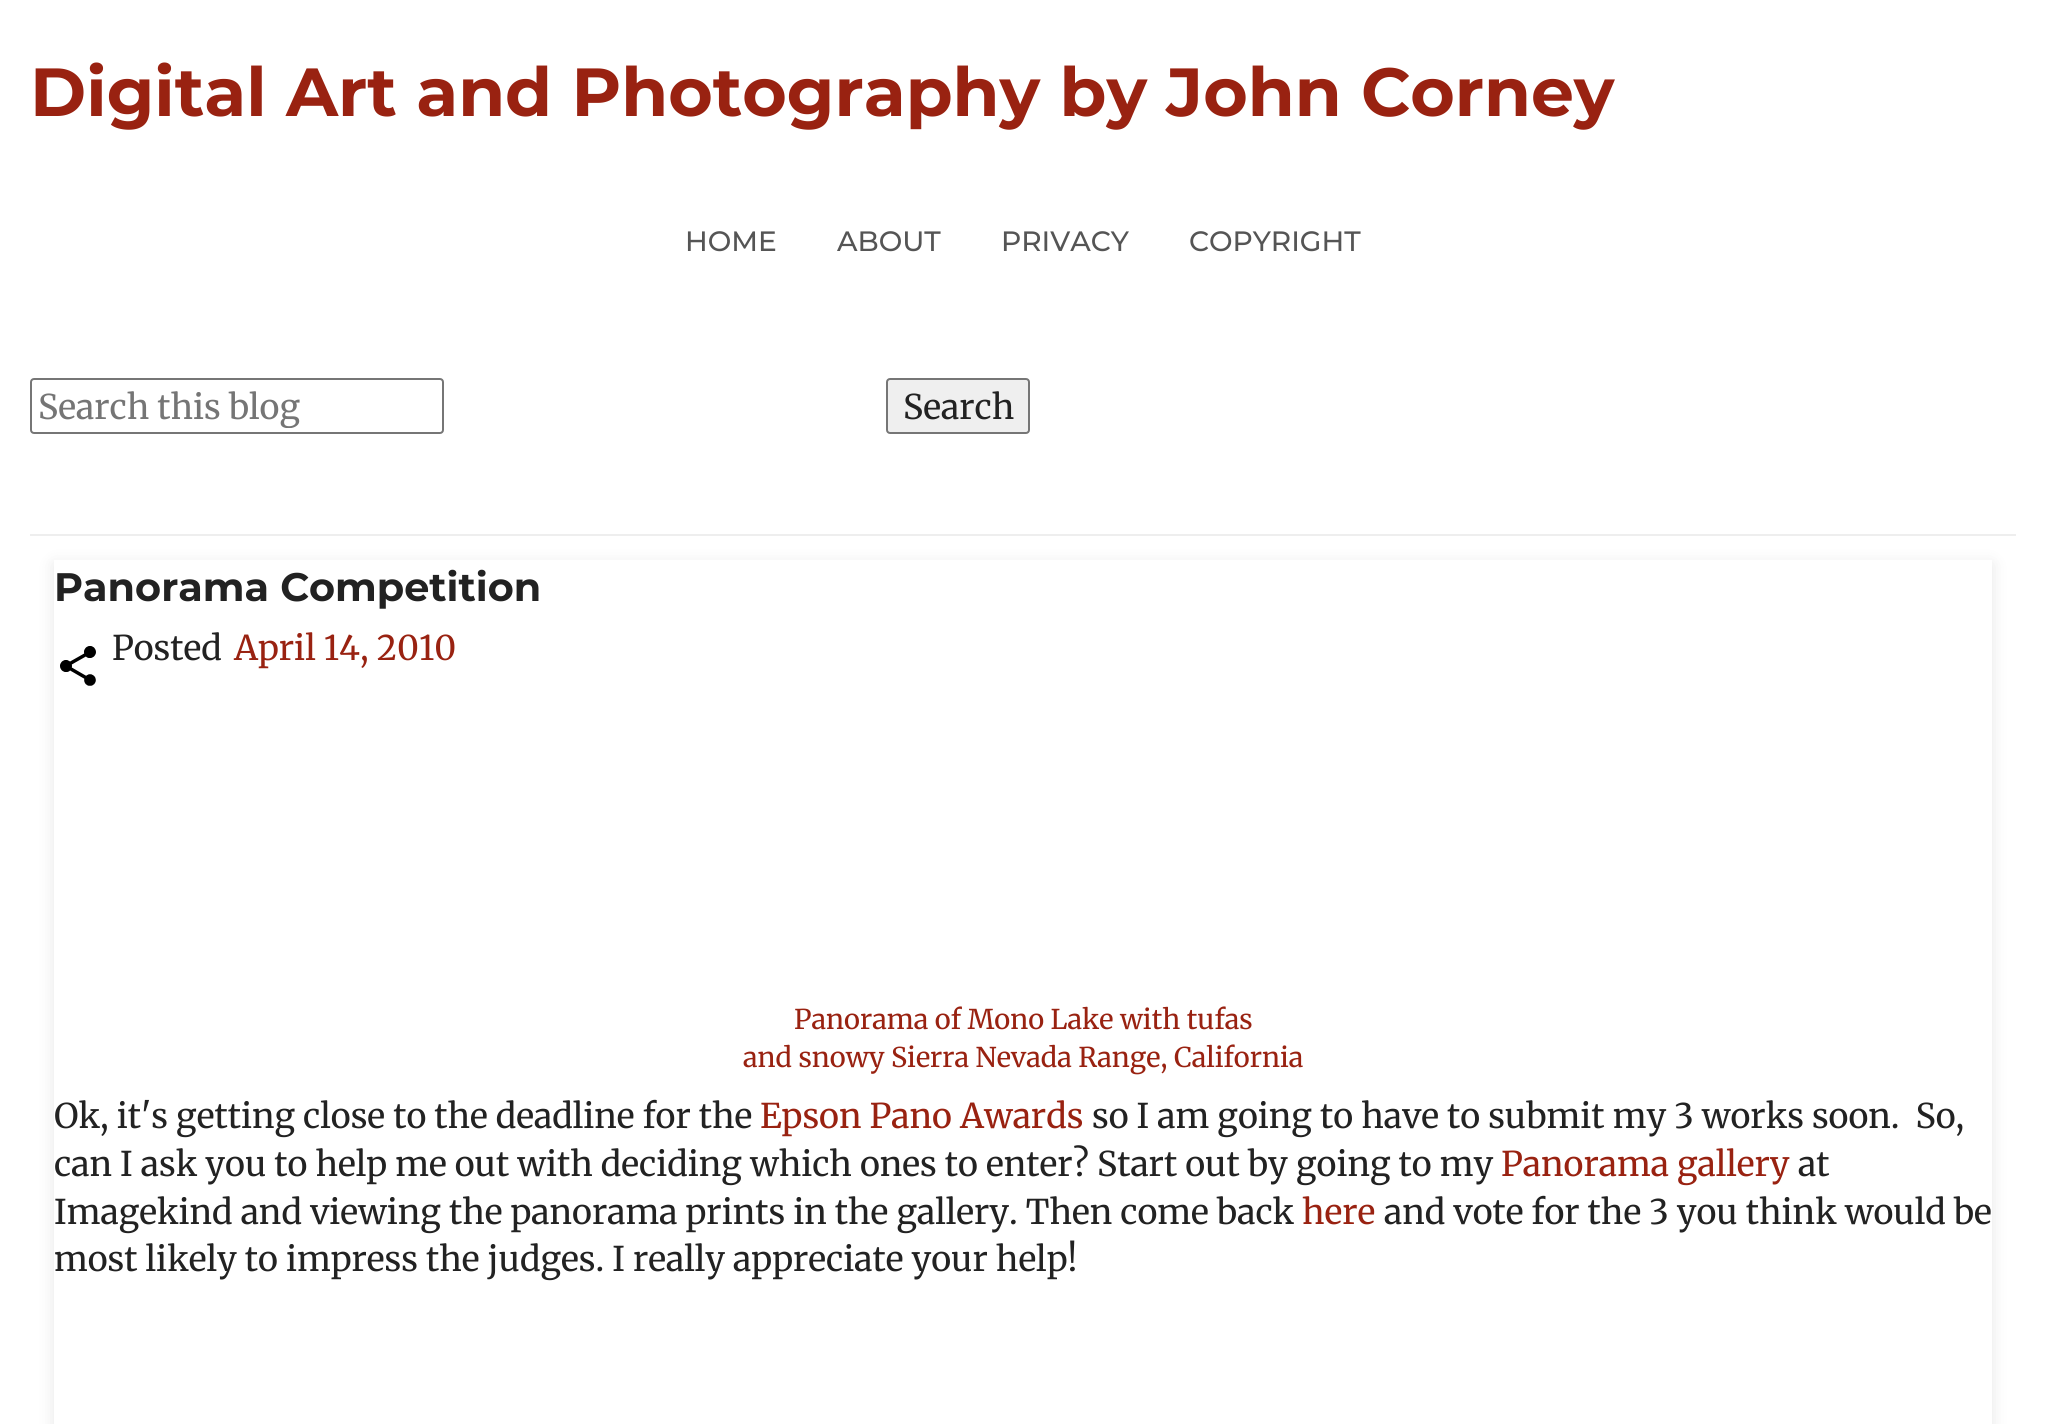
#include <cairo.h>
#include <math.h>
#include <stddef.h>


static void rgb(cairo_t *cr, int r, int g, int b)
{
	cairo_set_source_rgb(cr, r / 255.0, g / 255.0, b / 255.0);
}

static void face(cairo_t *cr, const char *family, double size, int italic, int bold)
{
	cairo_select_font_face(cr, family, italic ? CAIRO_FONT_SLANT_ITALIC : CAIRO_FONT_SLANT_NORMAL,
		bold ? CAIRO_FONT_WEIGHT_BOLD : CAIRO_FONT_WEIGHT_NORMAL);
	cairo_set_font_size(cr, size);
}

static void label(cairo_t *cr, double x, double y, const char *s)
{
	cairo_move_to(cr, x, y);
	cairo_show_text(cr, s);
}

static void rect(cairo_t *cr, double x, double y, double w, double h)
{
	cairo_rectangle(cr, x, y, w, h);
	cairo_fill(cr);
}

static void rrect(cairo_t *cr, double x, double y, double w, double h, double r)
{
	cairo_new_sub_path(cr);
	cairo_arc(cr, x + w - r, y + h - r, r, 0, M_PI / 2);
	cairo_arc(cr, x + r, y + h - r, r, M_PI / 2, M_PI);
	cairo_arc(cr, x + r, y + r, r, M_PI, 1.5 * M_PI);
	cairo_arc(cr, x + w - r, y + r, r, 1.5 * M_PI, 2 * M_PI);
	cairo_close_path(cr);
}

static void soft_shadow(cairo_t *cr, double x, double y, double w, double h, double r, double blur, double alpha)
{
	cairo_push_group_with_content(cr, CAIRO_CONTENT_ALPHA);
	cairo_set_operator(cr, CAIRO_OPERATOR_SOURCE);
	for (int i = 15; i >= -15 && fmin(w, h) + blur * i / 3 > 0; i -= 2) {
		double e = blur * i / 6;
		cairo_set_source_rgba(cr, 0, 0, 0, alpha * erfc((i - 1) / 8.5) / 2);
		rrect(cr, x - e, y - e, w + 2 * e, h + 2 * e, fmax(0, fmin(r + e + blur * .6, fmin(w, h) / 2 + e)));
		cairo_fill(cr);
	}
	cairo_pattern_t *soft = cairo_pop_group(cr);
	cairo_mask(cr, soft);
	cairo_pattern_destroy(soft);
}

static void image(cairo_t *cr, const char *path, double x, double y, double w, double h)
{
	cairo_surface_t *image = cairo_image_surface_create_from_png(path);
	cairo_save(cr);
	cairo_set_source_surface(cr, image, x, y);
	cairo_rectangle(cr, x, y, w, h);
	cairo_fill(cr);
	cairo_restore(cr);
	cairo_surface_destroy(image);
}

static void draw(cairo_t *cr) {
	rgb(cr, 255, 255, 255);
	cairo_paint(cr);
	face(cr, "Montserrat", 68, 0, 1);
	rgb(cr, 153, 34, 17);
	label(cr, 30, 116, "Digital Art and Photography by John Corney");
	face(cr, "Montserrat Medium", 28, 0, 0);
	rgb(cr, 85, 85, 85);
	label(cr, 685, 251, "HOME");
	label(cr, 837, 251, "ABOUT");
	label(cr, 1001, 251, "PRIVACY");
	label(cr, 1189, 251, "COPYRIGHT");
	rgb(cr, 238, 238, 238);
	rect(cr, 30, 534, 1986, 2);
	rrect(cr, 31, 379, 412, 54, 3);
	rgb(cr, 118, 118, 118);
	cairo_stroke(cr);
	cairo_save(cr);
	cairo_rectangle(cr, 38, 384, 398, 44);
	cairo_clip(cr);
	face(cr, "Merriweather", 34, 0, 0);
	rgb(cr, 117, 117, 117);
	label(cr, 38, 419, "Search this blog");
	cairo_restore(cr);
	rgb(cr, 239, 239, 239);
	rrect(cr, 887, 379, 142, 54, 3);
	cairo_fill_preserve(cr);
	rgb(cr, 118, 118, 118);
	cairo_stroke(cr);
	face(cr, "Merriweather", 34, 0, 0);
	rgb(cr, 34, 34, 34);
	label(cr, 903, 419, "Search");
	cairo_save(cr);
	cairo_set_fill_rule(cr, CAIRO_FILL_RULE_EVEN_ODD);
	cairo_new_path(cr);
	cairo_move_to(cr, 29, 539);
	cairo_line_to(cr, 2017, 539);
	cairo_line_to(cr, 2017, 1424);
	cairo_line_to(cr, 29, 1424);
	cairo_close_path(cr);
	cairo_move_to(cr, 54, 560);
	cairo_line_to(cr, 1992, 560);
	cairo_line_to(cr, 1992, 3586);
	cairo_line_to(cr, 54, 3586);
	cairo_close_path(cr);
	cairo_clip(cr);
	rgb(cr, 0, 0, 0);
	soft_shadow(cr, 54, 564, 1938, 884, 0, 8, 0.1);
	cairo_restore(cr);
	face(cr, "Montserrat", 39.75, 0, 1);
	label(cr, 54, 601, "Panorama Competition");
	image(cr, "image0.png", 60, 646, 36, 40);
	face(cr, "Merriweather", 34, 0, 0);
	label(cr, 112, 660, "Posted");
	rgb(cr, 153, 34, 17);
	label(cr, 234, 660, "April 14, 2010");
	face(cr, "Merriweather", 27.2, 0, 0);
	label(cr, 794, 1029, "Panorama of Mono Lake with tufas");
	label(cr, 743, 1067, "and snowy Sierra Nevada Range, California");
	face(cr, "Merriweather", 34, 0, 0);
	rgb(cr, 34, 34, 34);
	label(cr, 54, 1128, "Ok, it's getting close to the deadline for the");
	rgb(cr, 153, 34, 17);
	label(cr, 760, 1128, "Epson Pano Awards");
	rgb(cr, 34, 34, 34);
	label(cr, 1092, 1128, "so I am going to have to submit my 3 works soon.  So,");
	label(cr, 54, 1176, "can I ask you to help me out with deciding which ones to enter? Start out by going to my");
	rgb(cr, 153, 34, 17);
	label(cr, 1501, 1176, "Panorama gallery");
	rgb(cr, 34, 34, 34);
	label(cr, 1798, 1176, "at");
	label(cr, 54, 1224, "Imagekind and viewing the panorama prints in the gallery. Then come back");
	rgb(cr, 153, 34, 17);
	label(cr, 1302, 1224, "here");
	rgb(cr, 34, 34, 34);
	label(cr, 1384, 1224, "and vote for the 3 you think would be");
	label(cr, 54, 1271, "most likely to impress the judges. I really appreciate your help!");
}

int main(void) {
	cairo_surface_t *surface = cairo_image_surface_create(CAIRO_FORMAT_RGB24, 2046, 1424);
	cairo_t *cr = cairo_create(surface);
	cairo_font_options_t *options = cairo_font_options_create();
	cairo_font_options_set_hint_metrics(options, CAIRO_HINT_METRICS_OFF);
	cairo_font_options_set_hint_style(options, CAIRO_HINT_STYLE_NONE);
	cairo_set_font_options(cr, options);
	cairo_set_miter_limit(cr, 4);
	draw(cr);
	cairo_surface_write_to_png(surface, "render.png");
	cairo_font_options_destroy(options);
	cairo_destroy(cr);
	cairo_surface_destroy(surface);
	return 0;
}
